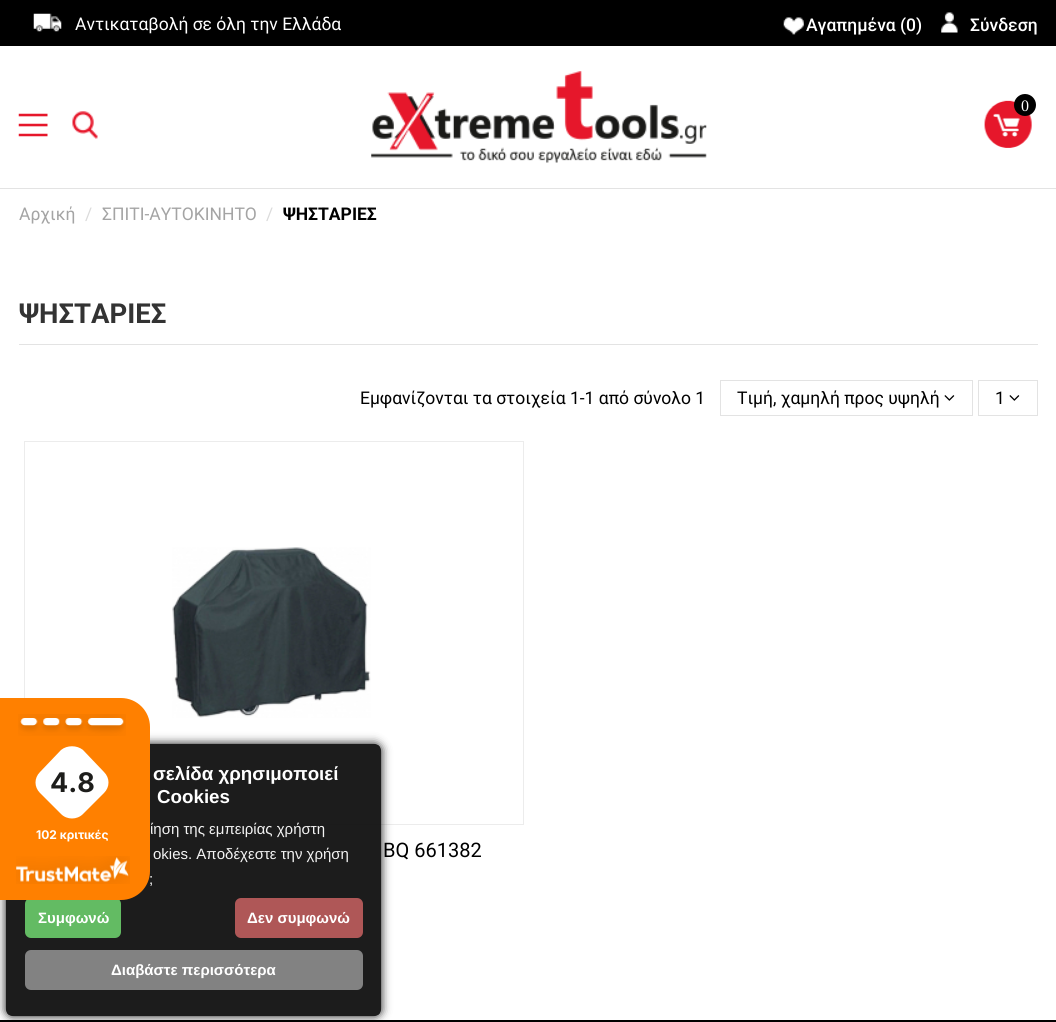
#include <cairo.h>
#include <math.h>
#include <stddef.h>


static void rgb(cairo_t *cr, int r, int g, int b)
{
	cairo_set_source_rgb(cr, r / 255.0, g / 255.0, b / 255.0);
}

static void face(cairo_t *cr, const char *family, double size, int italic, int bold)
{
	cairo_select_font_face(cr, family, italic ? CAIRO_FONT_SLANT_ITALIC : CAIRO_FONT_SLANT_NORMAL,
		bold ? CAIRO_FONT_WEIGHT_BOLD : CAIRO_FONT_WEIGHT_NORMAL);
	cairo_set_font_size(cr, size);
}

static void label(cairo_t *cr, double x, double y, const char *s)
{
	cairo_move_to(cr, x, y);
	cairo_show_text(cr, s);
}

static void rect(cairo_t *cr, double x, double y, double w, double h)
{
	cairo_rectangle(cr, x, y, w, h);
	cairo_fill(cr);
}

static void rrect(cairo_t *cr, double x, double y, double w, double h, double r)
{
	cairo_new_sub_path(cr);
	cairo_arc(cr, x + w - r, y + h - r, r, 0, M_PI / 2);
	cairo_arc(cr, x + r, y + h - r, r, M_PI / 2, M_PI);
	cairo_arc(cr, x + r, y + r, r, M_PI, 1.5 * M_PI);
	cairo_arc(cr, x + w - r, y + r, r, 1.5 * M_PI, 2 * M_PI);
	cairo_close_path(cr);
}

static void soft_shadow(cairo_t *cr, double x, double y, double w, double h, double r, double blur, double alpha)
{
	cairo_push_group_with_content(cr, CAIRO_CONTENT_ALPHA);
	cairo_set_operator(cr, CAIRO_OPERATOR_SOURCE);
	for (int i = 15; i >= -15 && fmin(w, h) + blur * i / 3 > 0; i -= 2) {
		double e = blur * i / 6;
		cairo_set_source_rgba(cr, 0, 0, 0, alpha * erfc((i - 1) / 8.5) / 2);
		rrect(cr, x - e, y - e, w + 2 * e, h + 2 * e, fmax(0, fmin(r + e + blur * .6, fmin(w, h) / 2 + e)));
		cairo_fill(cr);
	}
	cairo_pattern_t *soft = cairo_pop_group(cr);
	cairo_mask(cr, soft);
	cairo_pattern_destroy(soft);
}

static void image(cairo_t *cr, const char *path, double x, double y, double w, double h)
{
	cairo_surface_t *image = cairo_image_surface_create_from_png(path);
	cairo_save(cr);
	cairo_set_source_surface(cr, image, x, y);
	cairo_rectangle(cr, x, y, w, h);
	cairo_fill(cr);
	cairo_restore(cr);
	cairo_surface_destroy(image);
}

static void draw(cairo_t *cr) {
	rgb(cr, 255, 255, 255);
	cairo_paint(cr);
	rgb(cr, 0, 0, 0);
	rect(cr, 0, 0, 1056, 46);
	image(cr, "image0.png", 33, 13, 29, 19);
	face(cr, "Roboto", 17.5, 0, 0);
	rgb(cr, 255, 255, 255);
	label(cr, 75, 30, "Αντικαταβολή σε όλη την Ελλάδα");
	image(cr, "image1.png", 783, 17, 21, 18);
	face(cr, "Roboto Medium", 17.5, 0, 0);
	label(cr, 806, 31, "Αγαπημένα (0)");
	image(cr, "image2.png", 941, 12, 17, 21);
	label(cr, 970, 31, "Σύνδεση");
	rgb(cr, 227, 227, 227);
	rect(cr, 0, 188, 1056, 1);
	image(cr, "image3.png", 371, 71, 336, 92);
	image(cr, "image4.png", 984, 100, 48, 48);
	rgb(cr, 0, 0, 0);
	cairo_arc(cr, 1025, 105, 11, 0, 2 * M_PI);
	cairo_fill(cr);
	face(cr, "Liberation Serif", 16, 0, 0);
	rgb(cr, 255, 255, 255);
	label(cr, 1021, 111, "0");
	image(cr, "image5.png", 18, 113, 30, 24);
	image(cr, "image6.png", 72, 111, 26, 28);
	face(cr, "Roboto", 17.5, 0, 0);
	rgb(cr, 164, 164, 164);
	label(cr, 19, 220, "Αρχική");
	rgb(cr, 219, 219, 219);
	label(cr, 85, 220, "/");
	rgb(cr, 164, 164, 164);
	label(cr, 102, 220, "ΣΠΙΤΙ-ΑΥΤΟΚΙΝΗΤΟ");
	rgb(cr, 219, 219, 219);
	label(cr, 266, 220, "/");
	face(cr, "Roboto", 17.5, 0, 1);
	rgb(cr, 0, 0, 0);
	label(cr, 283, 220, "ΨΗΣΤΑΡΙΕΣ");
	rgb(cr, 227, 227, 227);
	rect(cr, 19, 344, 1019, 1);
	face(cr, "Roboto", 27.5, 0, 1);
	rgb(cr, 51, 51, 51);
	label(cr, 19, 323, "ΨΗΣΤΑΡΙΕΣ");
	face(cr, "Roboto", 17.5, 0, 0);
	rgb(cr, 0, 0, 0);
	label(cr, 360, 404, "Εμφανίζονται τα στοιχεία 1-1 από σύνολο 1");
	cairo_rectangle(cr, 720.5, 380.5, 252, 35);
	rgb(cr, 227, 227, 227);
	cairo_set_line_width(cr, 1);
	cairo_stroke(cr);
	rgb(cr, 0, 0, 0);
	label(cr, 737, 404, "Τιμή, χαμηλή προς υψηλή");
	image(cr, "image7.png", 944, 395, 11, 6);
	cairo_rectangle(cr, 978.5, 380.5, 59, 35);
	rgb(cr, 227, 227, 227);
	cairo_stroke(cr);
	rgb(cr, 0, 0, 0);
	label(cr, 995, 404, "1");
	image(cr, "image7.png", 1009, 395, 11, 6);
	cairo_rectangle(cr, 24.5, 441.5, 499, 383);
	rgb(cr, 236, 236, 236);
	cairo_stroke(cr);
	image(cr, "image8.png", 172, 547, 199, 171);
	face(cr, "Roboto", 20, 0, 0);
	rgb(cr, 0, 0, 0);
	label(cr, 383, 857, "BQ 661382");
	rect(cr, 0, 1020, 1056, 2);
	cairo_save(cr);
	cairo_set_fill_rule(cr, CAIRO_FILL_RULE_EVEN_ODD);
	cairo_new_path(cr);
	cairo_move_to(cr, 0, 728);
	cairo_line_to(cr, 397, 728);
	cairo_line_to(cr, 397, 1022);
	cairo_line_to(cr, 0, 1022);
	cairo_close_path(cr);
	cairo_move_to(cr, 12, 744);
	cairo_line_to(cr, 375, 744);
	cairo_curve_to(cr, 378.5, 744, 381, 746.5, 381, 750);
	cairo_line_to(cr, 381, 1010);
	cairo_curve_to(cr, 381, 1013.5, 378.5, 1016, 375, 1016);
	cairo_line_to(cr, 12, 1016);
	cairo_curve_to(cr, 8.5, 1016, 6, 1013.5, 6, 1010);
	cairo_line_to(cr, 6, 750);
	cairo_curve_to(cr, 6, 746.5, 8.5, 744, 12, 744);
	cairo_close_path(cr);
	cairo_clip(cr);
	rgb(cr, 0, 0, 0);
	soft_shadow(cr, 6, 744, 375, 272, 6, 5, 0.95);
	cairo_restore(cr);
	cairo_set_source_rgba(cr, 0.067, 0.067, 0.067, 0.95);
	rrect(cr, 6, 744, 375, 272, 6);
	cairo_fill(cr);
	rgb(cr, 99, 187, 99);
	rrect(cr, 25, 898, 96, 40, 6);
	cairo_fill(cr);
	rgb(cr, 255, 128, 0);
	cairo_new_path(cr);
	cairo_move_to(cr, -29, 698);
	cairo_line_to(cr, 121, 698);
	cairo_curve_to(cr, 137, 698, 150, 711, 150, 727);
	cairo_line_to(cr, 150, 871);
	cairo_curve_to(cr, 150, 887, 137, 900, 121, 900);
	cairo_line_to(cr, -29, 900);
	cairo_close_path(cr);
	cairo_fill(cr);
	image(cr, "image9.png", 18, 714, 108, 22);
	rgb(cr, 255, 255, 255);
	cairo_new_path(cr);
	cairo_move_to(cr, 83, 750);
	cairo_line_to(cr, 104, 772);
	cairo_curve_to(cr, 110, 778, 110, 787, 104, 793);
	cairo_line_to(cr, 83, 814);
	cairo_curve_to(cr, 77, 820, 67, 820, 61, 814);
	cairo_line_to(cr, 40, 793);
	cairo_curve_to(cr, 34, 787, 34, 778, 40, 772);
	cairo_line_to(cr, 61, 750);
	cairo_curve_to(cr, 67, 745, 77, 745, 83, 750);
	cairo_close_path(cr);
	cairo_fill(cr);
	face(cr, "Inter", 27, 0, 1);
	rgb(cr, 29, 29, 27);
	label(cr, 50, 792, "4.8");
	face(cr, "Inter", 12, 0, 1);
	rgb(cr, 255, 255, 255);
	label(cr, 36, 839, "102 κριτικές");
	image(cr, "image10.png", 16, 856, 114, 28);
	face(cr, "Liberation Sans", 18.75, 0, 1);
	label(cr, 153, 780, "σελίδα χρησιμοποιεί");
	label(cr, 157, 803, "Cookies");
	face(cr, "Liberation Sans", 15, 0, 0);
	rgb(cr, 243, 243, 243);
	label(cr, 150, 834, "ίηση της εμπειρίας χρήστη");
	label(cr, 153, 859, "okies. Αποδέχεστε την χρήση");
	rgb(cr, 255, 255, 255);
	label(cr, 149, 884, ";");
	face(cr, "Liberation Sans", 15, 0, 1);
	label(cr, 38, 923, "Συμφωνώ");
	cairo_set_source_rgba(cr, 0.718, 0.357, 0.357, 0.95);
	rrect(cr, 235, 898, 128, 40, 6);
	cairo_fill(cr);
	rgb(cr, 255, 255, 255);
	label(cr, 247, 923, "Δεν συμφωνώ");
	rgb(cr, 130, 130, 130);
	rrect(cr, 25, 950, 338, 40, 6);
	cairo_fill(cr);
	rgb(cr, 255, 255, 255);
	label(cr, 111, 975, "Διαβάστε περισσότερα");
}

int main(void) {
	cairo_surface_t *surface = cairo_image_surface_create(CAIRO_FORMAT_RGB24, 1056, 1022);
	cairo_t *cr = cairo_create(surface);
	cairo_font_options_t *options = cairo_font_options_create();
	cairo_font_options_set_hint_metrics(options, CAIRO_HINT_METRICS_OFF);
	cairo_font_options_set_hint_style(options, CAIRO_HINT_STYLE_NONE);
	cairo_set_font_options(cr, options);
	cairo_set_miter_limit(cr, 4);
	draw(cr);
	cairo_surface_write_to_png(surface, "render.png");
	cairo_font_options_destroy(options);
	cairo_destroy(cr);
	cairo_surface_destroy(surface);
	return 0;
}
